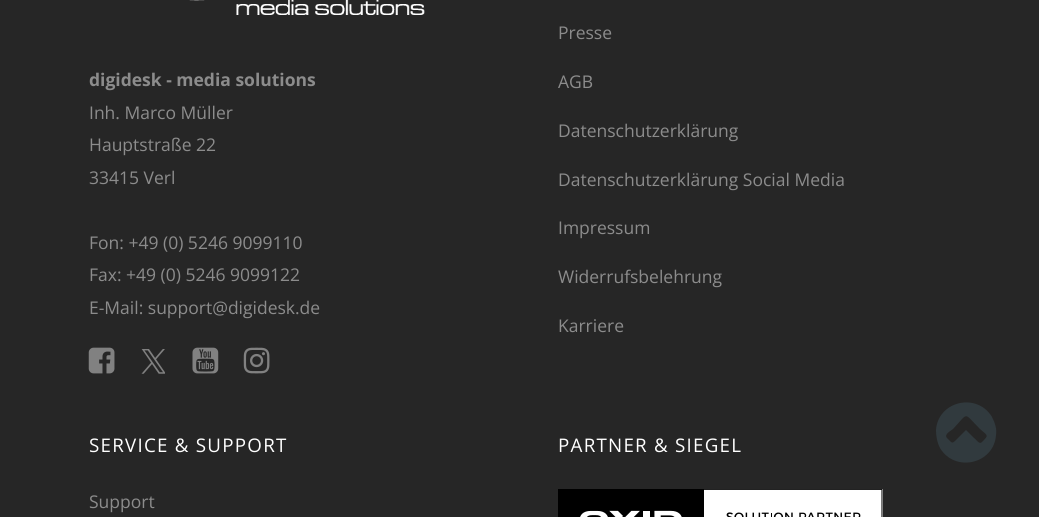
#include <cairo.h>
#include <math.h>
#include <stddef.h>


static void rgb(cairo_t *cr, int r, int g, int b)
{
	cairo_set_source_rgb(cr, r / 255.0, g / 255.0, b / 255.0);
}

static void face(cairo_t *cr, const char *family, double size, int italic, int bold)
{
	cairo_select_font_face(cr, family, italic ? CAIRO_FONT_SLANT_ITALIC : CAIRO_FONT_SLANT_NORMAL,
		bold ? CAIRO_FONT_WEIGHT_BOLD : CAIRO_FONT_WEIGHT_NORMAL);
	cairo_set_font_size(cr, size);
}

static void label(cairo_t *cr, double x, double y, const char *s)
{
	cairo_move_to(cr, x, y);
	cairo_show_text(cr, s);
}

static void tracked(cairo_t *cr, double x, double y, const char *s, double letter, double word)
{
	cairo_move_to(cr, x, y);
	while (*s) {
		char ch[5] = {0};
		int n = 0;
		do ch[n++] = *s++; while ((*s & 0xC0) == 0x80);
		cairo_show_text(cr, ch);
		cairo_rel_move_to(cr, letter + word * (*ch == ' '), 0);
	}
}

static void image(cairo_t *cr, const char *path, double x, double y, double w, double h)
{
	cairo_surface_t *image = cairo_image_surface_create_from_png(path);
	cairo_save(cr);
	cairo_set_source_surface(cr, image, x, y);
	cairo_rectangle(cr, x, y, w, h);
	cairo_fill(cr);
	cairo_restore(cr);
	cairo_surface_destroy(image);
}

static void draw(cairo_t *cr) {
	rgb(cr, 38, 38, 38);
	cairo_paint(cr);
	image(cr, "image0.png", 189, 0, 236, 15);
	face(cr, "Open Sans", 17.5, 0, 1);
	rgb(cr, 140, 140, 140);
	label(cr, 89, 86, "digidesk - media solutions");
	face(cr, "Open Sans", 17.5, 0, 0);
	label(cr, 89, 119, "Inh. Marco Müller");
	label(cr, 89, 151, "Hauptstraße 22");
	label(cr, 89, 184, "33415 Verl");
	label(cr, 89, 249, "Fon: +49 (0) 5246 9099110");
	label(cr, 89, 281, "Fax: +49 (0) 5246 9099122");
	label(cr, 89, 314, "E-Mail: support@digidesk.de");
	image(cr, "image1.png", 88, 347, 27, 27);
	image(cr, "image2.png", 141, 349, 24, 25);
	image(cr, "image3.png", 192, 347, 27, 27);
	image(cr, "image4.png", 243, 347, 27, 27);
	label(cr, 558, 39, "Presse");
	label(cr, 558, 88, "AGB");
	label(cr, 558, 137, "Datenschutzerklärung");
	label(cr, 558, 186, "Datenschutzerklärung Social Media");
	label(cr, 558, 234, "Impressum");
	label(cr, 558, 283, "Widerrufsbelehrung");
	label(cr, 558, 332, "Karriere");
	face(cr, "Open Sans", 18.75, 0, 0);
	rgb(cr, 255, 255, 255);
	tracked(cr, 89, 452, "SERVICE & SUPPORT", 1.25, 0);
	face(cr, "Open Sans", 17.5, 0, 0);
	rgb(cr, 140, 140, 140);
	label(cr, 89, 508, "Support");
	face(cr, "Open Sans", 18.75, 0, 0);
	rgb(cr, 255, 255, 255);
	tracked(cr, 558, 452, "PARTNER & SIEGEL", 1.25, 0);
	image(cr, "image5.png", 558, 489, 325, 28);
	rgb(cr, 49, 58, 62);
	cairo_new_path(cr);
	cairo_move_to(cr, 982, 442);
	cairo_curve_to(cr, 989, 435, 988, 436, 980, 429);
	cairo_curve_to(cr, 963, 412, 969, 412, 953, 429);
	cairo_curve_to(cr, 949, 432, 943, 435, 948, 439);
	cairo_curve_to(cr, 952, 443, 952, 444, 956, 440);
	cairo_line_to(cr, 966, 430);
	cairo_line_to(cr, 974, 438);
	cairo_curve_to(cr, 976, 439, 979, 445, 982, 442);
	cairo_close_path(cr);
	cairo_move_to(cr, 992, 417);
	cairo_curve_to(cr, 995, 423, 997, 429, 996, 435);
	cairo_curve_to(cr, 994, 464, 955, 473, 940, 448);
	cairo_curve_to(cr, 937, 442, 936, 436, 936, 430);
	cairo_curve_to(cr, 938, 401, 977, 392, 992, 417);
	cairo_close_path(cr);
	cairo_fill(cr);
}

int main(void) {
	cairo_surface_t *surface = cairo_image_surface_create(CAIRO_FORMAT_RGB24, 1039, 517);
	cairo_t *cr = cairo_create(surface);
	cairo_font_options_t *options = cairo_font_options_create();
	cairo_font_options_set_hint_metrics(options, CAIRO_HINT_METRICS_OFF);
	cairo_font_options_set_hint_style(options, CAIRO_HINT_STYLE_NONE);
	cairo_set_font_options(cr, options);
	cairo_set_miter_limit(cr, 4);
	draw(cr);
	cairo_surface_write_to_png(surface, "render.png");
	cairo_font_options_destroy(options);
	cairo_destroy(cr);
	cairo_surface_destroy(surface);
	return 0;
}
